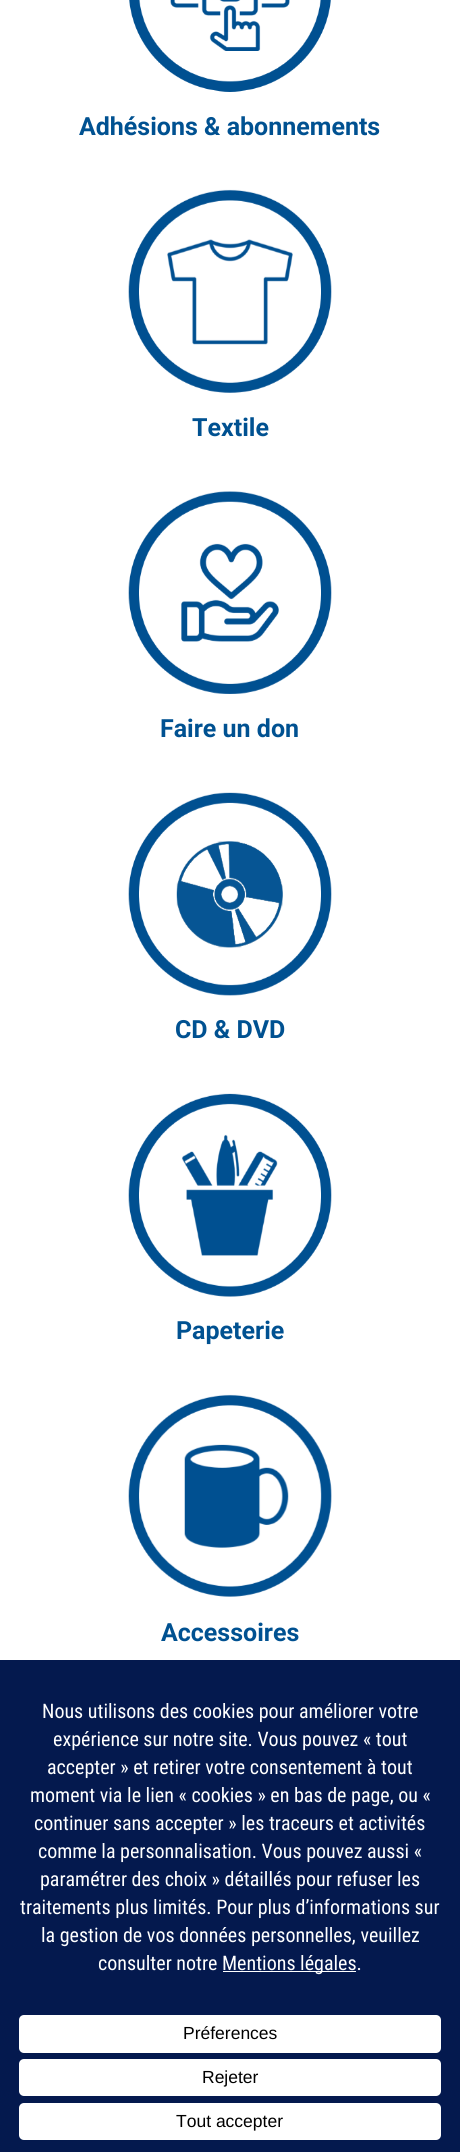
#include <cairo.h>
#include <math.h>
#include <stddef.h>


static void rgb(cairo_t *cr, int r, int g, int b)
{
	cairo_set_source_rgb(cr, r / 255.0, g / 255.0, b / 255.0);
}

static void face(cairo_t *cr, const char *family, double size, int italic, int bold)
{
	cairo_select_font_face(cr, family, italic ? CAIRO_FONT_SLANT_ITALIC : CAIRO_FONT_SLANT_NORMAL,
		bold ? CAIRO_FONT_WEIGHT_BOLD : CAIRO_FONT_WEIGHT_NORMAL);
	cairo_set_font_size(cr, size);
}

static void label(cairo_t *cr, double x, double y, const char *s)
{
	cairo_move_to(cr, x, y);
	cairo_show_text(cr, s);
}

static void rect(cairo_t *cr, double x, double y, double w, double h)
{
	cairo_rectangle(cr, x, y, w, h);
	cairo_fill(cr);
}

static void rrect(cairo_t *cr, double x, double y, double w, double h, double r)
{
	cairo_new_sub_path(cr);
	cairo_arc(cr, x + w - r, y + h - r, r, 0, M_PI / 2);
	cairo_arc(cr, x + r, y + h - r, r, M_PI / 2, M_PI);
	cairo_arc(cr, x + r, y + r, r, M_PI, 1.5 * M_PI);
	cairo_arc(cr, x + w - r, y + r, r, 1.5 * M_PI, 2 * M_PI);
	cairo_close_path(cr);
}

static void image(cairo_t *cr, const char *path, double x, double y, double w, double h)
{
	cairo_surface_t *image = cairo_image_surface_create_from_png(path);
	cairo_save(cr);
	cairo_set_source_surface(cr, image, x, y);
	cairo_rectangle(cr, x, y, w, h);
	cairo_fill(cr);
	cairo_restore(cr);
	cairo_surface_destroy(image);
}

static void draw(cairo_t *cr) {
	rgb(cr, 255, 255, 255);
	cairo_paint(cr);
	image(cr, "image0.png", 129, 0, 202, 92);
	face(cr, "Roboto", 25, 0, 1);
	rgb(cr, 0, 81, 145);
	label(cr, 79, 135, "Adhésions & abonnements");
	image(cr, "image1.png", 128, 189, 204, 204);
	label(cr, 192, 436, "Textile");
	image(cr, "image2.png", 128, 491, 204, 203);
	label(cr, 160, 737, "Faire un don");
	image(cr, "image3.png", 128, 792, 204, 204);
	label(cr, 175, 1038, "CD & DVD");
	image(cr, "image4.png", 128, 1093, 204, 204);
	label(cr, 176, 1339, "Papeterie");
	image(cr, "image5.png", 128, 1394, 204, 203);
	label(cr, 161, 1641, "Accessoires");
	rgb(cr, 4, 25, 78);
	rect(cr, 0, 1660, 460, 492);
	face(cr, "Roboto Condensed", 20, 0, 0);
	rgb(cr, 255, 255, 255);
	label(cr, 42, 1718, "Nous utilisons des cookies pour améliorer votre");
	label(cr, 53, 1746, "expérience sur notre site. Vous pouvez « tout");
	label(cr, 47, 1774, "accepter » et retirer votre consentement à tout");
	label(cr, 30, 1802, "moment via le lien « cookies » en bas de page, ou «");
	label(cr, 34, 1830, "continuer sans accepter » les traceurs et activités");
	label(cr, 38, 1858, "comme la personnalisation. Vous pouvez aussi «");
	label(cr, 40, 1886, "paramétrer des choix » détaillés pour refuser les");
	label(cr, 20, 1914, "traitements plus limités. Pour plus d’informations sur");
	label(cr, 41, 1942, "la gestion de vos données personnelles, veuillez");
	label(cr, 98, 1970, "consulter notre");
	rect(cr, 223, 1971, 133, 1);
	label(cr, 222, 1970, "Mentions légales.");
	rrect(cr, 19, 2015, 422, 38, 5);
	cairo_fill(cr);
	face(cr, "Liberation Sans", 17.5, 0, 0);
	rgb(cr, 0, 0, 0);
	label(cr, 183, 2039, "Préferences");
	rgb(cr, 255, 255, 255);
	rrect(cr, 19, 2059, 422, 37, 5);
	cairo_fill(cr);
	rgb(cr, 0, 0, 0);
	label(cr, 202, 2083, "Rejeter");
	rgb(cr, 255, 255, 255);
	rrect(cr, 19, 2103, 422, 37, 5);
	cairo_fill(cr);
	rgb(cr, 0, 0, 0);
	label(cr, 176, 2127, "Tout accepter");
}

int main(void) {
	cairo_surface_t *surface = cairo_image_surface_create(CAIRO_FORMAT_RGB24, 460, 2152);
	cairo_t *cr = cairo_create(surface);
	cairo_font_options_t *options = cairo_font_options_create();
	cairo_font_options_set_hint_metrics(options, CAIRO_HINT_METRICS_OFF);
	cairo_font_options_set_hint_style(options, CAIRO_HINT_STYLE_NONE);
	cairo_set_font_options(cr, options);
	cairo_set_miter_limit(cr, 4);
	draw(cr);
	cairo_surface_write_to_png(surface, "render.png");
	cairo_font_options_destroy(options);
	cairo_destroy(cr);
	cairo_surface_destroy(surface);
	return 0;
}
